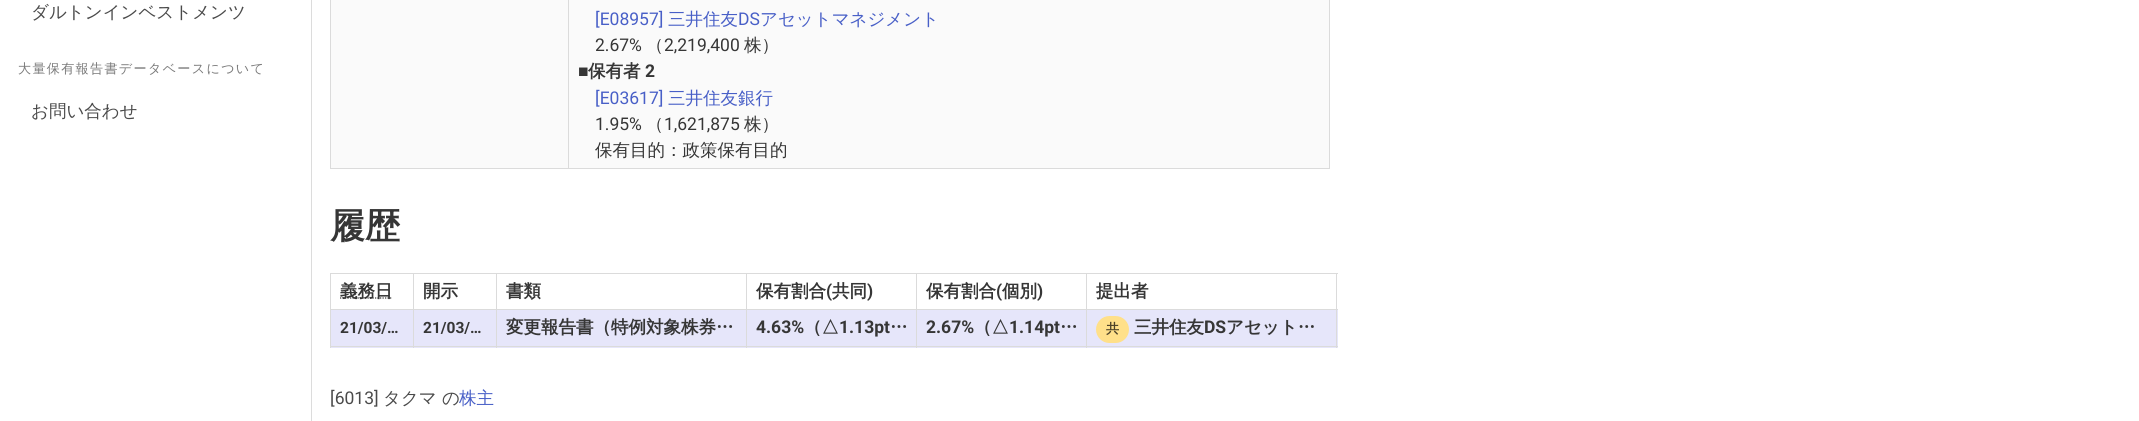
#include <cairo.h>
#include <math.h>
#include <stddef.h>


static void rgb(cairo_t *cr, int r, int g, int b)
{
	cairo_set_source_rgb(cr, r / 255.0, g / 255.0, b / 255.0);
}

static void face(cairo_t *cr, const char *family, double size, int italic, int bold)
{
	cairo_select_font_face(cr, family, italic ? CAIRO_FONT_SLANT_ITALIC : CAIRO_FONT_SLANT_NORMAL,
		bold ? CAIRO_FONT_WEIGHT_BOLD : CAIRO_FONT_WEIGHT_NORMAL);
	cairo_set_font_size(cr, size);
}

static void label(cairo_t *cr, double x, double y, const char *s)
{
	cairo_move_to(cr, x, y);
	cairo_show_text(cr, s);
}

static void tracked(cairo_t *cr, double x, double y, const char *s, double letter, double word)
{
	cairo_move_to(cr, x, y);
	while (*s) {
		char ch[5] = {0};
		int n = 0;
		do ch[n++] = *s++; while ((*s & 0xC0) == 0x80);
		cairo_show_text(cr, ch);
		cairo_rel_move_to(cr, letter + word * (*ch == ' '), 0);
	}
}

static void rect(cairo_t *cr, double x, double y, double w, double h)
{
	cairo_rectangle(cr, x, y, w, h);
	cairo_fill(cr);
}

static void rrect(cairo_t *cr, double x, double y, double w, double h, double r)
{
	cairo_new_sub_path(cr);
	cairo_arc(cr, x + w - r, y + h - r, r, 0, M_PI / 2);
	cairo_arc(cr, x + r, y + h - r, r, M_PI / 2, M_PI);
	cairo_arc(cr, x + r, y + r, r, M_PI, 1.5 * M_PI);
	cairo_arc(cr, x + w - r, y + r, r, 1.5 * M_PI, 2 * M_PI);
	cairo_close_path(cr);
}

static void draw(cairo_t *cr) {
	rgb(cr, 255, 255, 255);
	cairo_paint(cr);
	rgb(cr, 220, 220, 220);
	rect(cr, 311, 0, 1, 421);
	face(cr, "WenQuanYi Zen Hei Medium", 17.5, 0, 0);
	rgb(cr, 74, 74, 74);
	label(cr, 31, 18, "ダルトンインベストメンツ");
	face(cr, "WenQuanYi Zen Hei Medium", 13.1, 0, 0);
	rgb(cr, 122, 122, 122);
	tracked(cr, 18, 73, "大量保有報告書データベースについて", 1.3, 0);
	face(cr, "WenQuanYi Zen Hei Medium", 17.5, 0, 0);
	rgb(cr, 74, 74, 74);
	label(cr, 31, 117, "お問い合わせ");
	rgb(cr, 250, 250, 250);
	rect(cr, 331, 0, 998, 168);
	rgb(cr, 219, 219, 219);
	rect(cr, 1329, 0, 1, 169);
	rect(cr, 568, 168, 762, 1);
	rect(cr, 568, 0, 1, 169);
	rect(cr, 330, 168, 239, 1);
	rect(cr, 330, 0, 1, 169);
	face(cr, "Roboto", 17.5, 0, 0);
	rgb(cr, 72, 95, 199);
	label(cr, 595, 25, "[E08957]");
	face(cr, "WenQuanYi Zen Hei Medium", 17.5, 0, 0);
	label(cr, 668, 25, "三井住友");
	face(cr, "Roboto", 17.5, 0, 0);
	label(cr, 738, 25, "DS");
	face(cr, "WenQuanYi Zen Hei Medium", 17.5, 0, 0);
	label(cr, 760, 25, "アセットマネジメント");
	face(cr, "Roboto", 17.5, 0, 0);
	rgb(cr, 54, 54, 54);
	label(cr, 595, 51, "2.67%");
	face(cr, "WenQuanYi Zen Hei Medium", 17.5, 0, 0);
	label(cr, 646, 51, "（");
	face(cr, "Roboto", 17.5, 0, 0);
	label(cr, 664, 51, "2,219,400");
	face(cr, "WenQuanYi Zen Hei Medium", 17.5, 0, 0);
	label(cr, 744, 51, "株）");
	face(cr, "Liberation Sans", 17.5, 0, 1);
	label(cr, 578, 77, "■");
	face(cr, "WenQuanYi Zen Hei", 17.5, 0, 1);
	label(cr, 588, 77, "保有者");
	face(cr, "Roboto", 17.5, 0, 1);
	label(cr, 645, 77, "2");
	face(cr, "Roboto", 17.5, 0, 0);
	rgb(cr, 72, 95, 199);
	label(cr, 595, 104, "[E03617]");
	face(cr, "WenQuanYi Zen Hei Medium", 17.5, 0, 0);
	label(cr, 668, 104, "三井住友銀行");
	face(cr, "Roboto", 17.5, 0, 0);
	rgb(cr, 54, 54, 54);
	label(cr, 595, 130, "1.95%");
	face(cr, "WenQuanYi Zen Hei Medium", 17.5, 0, 0);
	label(cr, 646, 130, "（");
	face(cr, "Roboto", 17.5, 0, 0);
	label(cr, 664, 130, "1,621,875");
	face(cr, "WenQuanYi Zen Hei Medium", 17.5, 0, 0);
	label(cr, 744, 130, "株）");
	label(cr, 595, 156, "保有目的：政策保有目的");
	face(cr, "WenQuanYi Zen Hei", 35, 0, 1);
	label(cr, 330, 238, "履歴");
	rgb(cr, 219, 219, 219);
	rect(cr, 1086, 273, 252, 1);
	rect(cr, 1086, 309, 252, 1);
	rgb(cr, 230, 230, 250);
	rect(cr, 331, 310, 1007, 38);
	rgb(cr, 219, 219, 219);
	rect(cr, 1336, 309, 1, 39);
	rect(cr, 1086, 346, 252, 1);
	rect(cr, 1086, 309, 1, 39);
	rect(cr, 916, 309, 172, 1);
	rect(cr, 1086, 273, 1, 37);
	rect(cr, 916, 273, 172, 1);
	rect(cr, 916, 346, 172, 1);
	rect(cr, 916, 309, 1, 39);
	rect(cr, 746, 309, 172, 1);
	rect(cr, 916, 273, 1, 37);
	rect(cr, 746, 273, 172, 1);
	rect(cr, 746, 346, 172, 1);
	rect(cr, 746, 309, 1, 39);
	rect(cr, 496, 309, 252, 1);
	rect(cr, 746, 273, 1, 37);
	rect(cr, 496, 273, 252, 1);
	rect(cr, 496, 346, 252, 1);
	rect(cr, 496, 309, 1, 39);
	rect(cr, 413, 309, 85, 1);
	rect(cr, 496, 273, 1, 37);
	rect(cr, 413, 273, 85, 1);
	rect(cr, 413, 346, 85, 1);
	rect(cr, 413, 309, 1, 39);
	rect(cr, 330, 309, 84, 1);
	rect(cr, 413, 273, 1, 37);
	rect(cr, 330, 273, 84, 1);
	rect(cr, 330, 346, 84, 1);
	rect(cr, 330, 309, 1, 39);
	rect(cr, 330, 273, 1, 37);
	cairo_new_path(cr);
	cairo_move_to(cr, 340, 298);
	cairo_line_to(cr, 392.5, 298);
	rgb(cr, 54, 54, 54);
	cairo_set_line_width(cr, 1.2);
	cairo_set_dash(cr, (double[]){1.25, 1.25}, 2, 0);
	cairo_stroke(cr);
	face(cr, "WenQuanYi Zen Hei", 17.5, 0, 1);
	label(cr, 340, 297, "義務日");
	label(cr, 423, 297, "開示");
	label(cr, 506, 297, "書類");
	label(cr, 756, 297, "保有割合");
	face(cr, "Roboto", 17.5, 0, 1);
	label(cr, 826, 297, "(");
	face(cr, "WenQuanYi Zen Hei", 17.5, 0, 1);
	label(cr, 832, 297, "共同");
	face(cr, "Roboto", 17.5, 0, 1);
	label(cr, 867, 297, ")");
	face(cr, "WenQuanYi Zen Hei", 17.5, 0, 1);
	label(cr, 926, 297, "保有割合");
	face(cr, "Roboto", 17.5, 0, 1);
	label(cr, 996, 297, "(");
	face(cr, "WenQuanYi Zen Hei", 17.5, 0, 1);
	label(cr, 1002, 297, "個別");
	face(cr, "Roboto", 17.5, 0, 1);
	label(cr, 1037, 297, ")");
	rgb(cr, 219, 219, 219);
	rect(cr, 1336, 273, 1, 37);
	face(cr, "WenQuanYi Zen Hei", 17.5, 0, 1);
	rgb(cr, 54, 54, 54);
	label(cr, 1096, 297, "提出者");
	face(cr, "Roboto", 15.5, 0, 1);
	label(cr, 340, 333, "21/03/…");
	label(cr, 423, 333, "21/03/…");
	face(cr, "WenQuanYi Zen Hei", 17.5, 0, 1);
	label(cr, 506, 333, "変更報告書（特例対象株券…");
	face(cr, "Roboto", 17.5, 0, 1);
	label(cr, 756, 333, "4.63%");
	face(cr, "WenQuanYi Zen Hei", 17.5, 0, 1);
	label(cr, 804, 333, "（△");
	face(cr, "Roboto", 17.5, 0, 1);
	label(cr, 839, 333, "1.13pt");
	face(cr, "WenQuanYi Zen Hei", 17.5, 0, 1);
	label(cr, 890, 333, "…");
	face(cr, "Roboto", 17.5, 0, 1);
	label(cr, 926, 333, "2.67%");
	face(cr, "WenQuanYi Zen Hei", 17.5, 0, 1);
	label(cr, 974, 333, "（△");
	face(cr, "Roboto", 17.5, 0, 1);
	label(cr, 1009, 333, "1.14pt");
	face(cr, "WenQuanYi Zen Hei", 17.5, 0, 1);
	label(cr, 1060, 333, "…");
	rgb(cr, 255, 224, 138);
	rrect(cr, 1096, 316, 33, 27, 13.5);
	cairo_fill(cr);
	face(cr, "WenQuanYi Zen Hei", 13.1, 0, 1);
	rgb(cr, 77, 67, 41);
	label(cr, 1106, 333, "共");
	face(cr, "WenQuanYi Zen Hei", 17.5, 0, 1);
	rgb(cr, 54, 54, 54);
	label(cr, 1134, 333, "三井住友");
	face(cr, "Roboto", 17.5, 0, 1);
	label(cr, 1204, 333, "DS");
	face(cr, "WenQuanYi Zen Hei", 17.5, 0, 1);
	label(cr, 1226, 333, "アセット…");
	face(cr, "Roboto", 17.5, 0, 0);
	rgb(cr, 74, 74, 74);
	label(cr, 330, 404, "[6013]");
	face(cr, "WenQuanYi Zen Hei Medium", 17.5, 0, 0);
	label(cr, 383, 404, "タクマ の");
	rgb(cr, 72, 95, 199);
	label(cr, 459, 404, "株主");
}

int main(void) {
	cairo_surface_t *surface = cairo_image_surface_create(CAIRO_FORMAT_RGB24, 2139, 421);
	cairo_t *cr = cairo_create(surface);
	cairo_font_options_t *options = cairo_font_options_create();
	cairo_font_options_set_hint_metrics(options, CAIRO_HINT_METRICS_OFF);
	cairo_font_options_set_hint_style(options, CAIRO_HINT_STYLE_NONE);
	cairo_set_font_options(cr, options);
	cairo_set_miter_limit(cr, 4);
	draw(cr);
	cairo_surface_write_to_png(surface, "render.png");
	cairo_font_options_destroy(options);
	cairo_destroy(cr);
	cairo_surface_destroy(surface);
	return 0;
}
